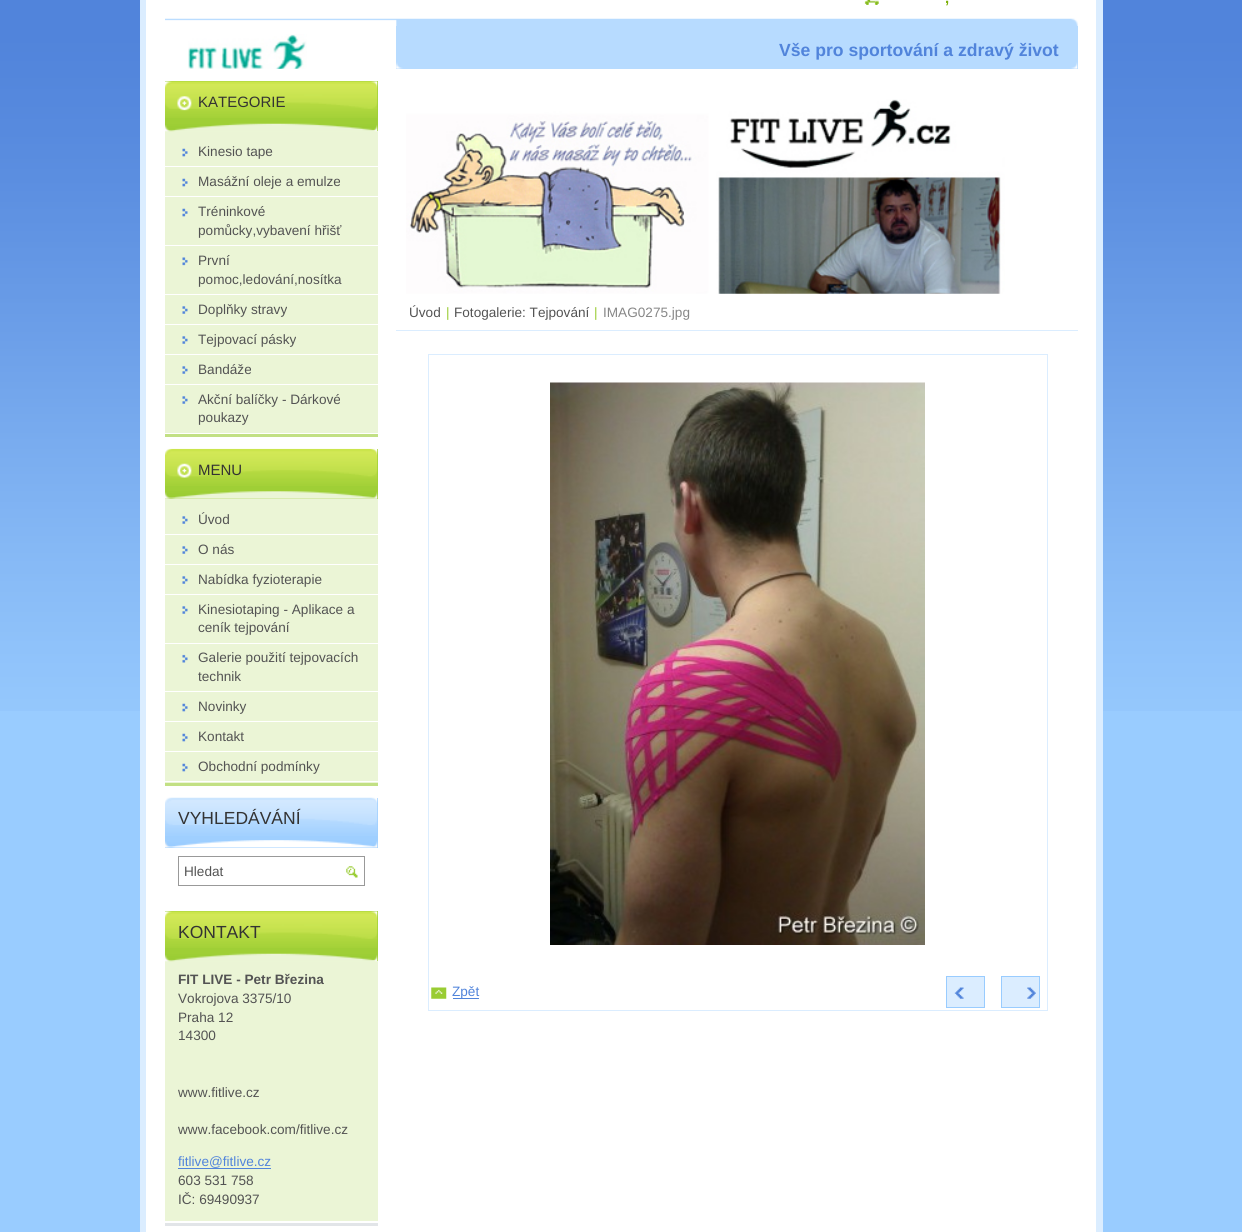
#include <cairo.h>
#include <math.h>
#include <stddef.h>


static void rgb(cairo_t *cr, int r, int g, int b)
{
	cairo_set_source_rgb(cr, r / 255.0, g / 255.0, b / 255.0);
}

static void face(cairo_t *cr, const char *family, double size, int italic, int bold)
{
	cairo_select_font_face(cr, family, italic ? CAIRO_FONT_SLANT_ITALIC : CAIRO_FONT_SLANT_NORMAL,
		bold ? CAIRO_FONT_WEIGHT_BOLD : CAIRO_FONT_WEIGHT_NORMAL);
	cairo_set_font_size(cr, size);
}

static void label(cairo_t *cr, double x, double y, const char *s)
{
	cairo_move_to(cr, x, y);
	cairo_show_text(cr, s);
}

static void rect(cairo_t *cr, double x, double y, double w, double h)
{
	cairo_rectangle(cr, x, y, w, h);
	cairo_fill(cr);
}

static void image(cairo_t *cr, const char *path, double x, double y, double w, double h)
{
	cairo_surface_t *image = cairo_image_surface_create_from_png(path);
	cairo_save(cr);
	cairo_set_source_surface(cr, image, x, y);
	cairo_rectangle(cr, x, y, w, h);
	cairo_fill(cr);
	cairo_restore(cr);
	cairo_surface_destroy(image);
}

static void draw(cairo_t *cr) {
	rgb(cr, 153, 204, 255);
	cairo_paint(cr);
	image(cr, "image0.png", 0, 0, 1242, 711);
	rgb(cr, 255, 255, 255);
	rect(cr, 146, 0, 950, 1232);
	rgb(cr, 219, 237, 255);
	rect(cr, 1096, 0, 7, 1232);
	rect(cr, 140, 0, 6, 1232);
	image(cr, "image1.png", 864, 0, 15, 5);
	face(cr, "Liberation Sans", 15, 0, 1);
	rgb(cr, 124, 175, 6);
	label(cr, 945, 3, ",");
	image(cr, "image2.png", 165, 18, 913, 9);
	image(cr, "image3.png", 188, 34, 119, 35);
	rgb(cr, 183, 219, 255);
	rect(cr, 396, 26, 682, 43);
	image(cr, "image4.png", 396, 62, 682, 7);
	face(cr, "Liberation Sans", 17.6, 0, 1);
	rgb(cr, 81, 132, 219);
	label(cr, 779, 56, "Vše pro sportování a zdravý život");
	rgb(cr, 194, 224, 132);
	rect(cr, 165, 434, 213, 3);
	rgb(cr, 235, 245, 214);
	rect(cr, 165, 131, 213, 302);
	rgb(cr, 159, 207, 54);
	rect(cr, 165, 81, 213, 50);
	image(cr, "image5.png", 165, 81, 213, 37);
	image(cr, "image6.png", 165, 123, 213, 9);
	face(cr, "Liberation Sans", 15, 0, 0);
	rgb(cr, 51, 51, 51);
	label(cr, 198, 107, "KATEGORIE");
	image(cr, "image7.png", 182, 148, 6, 9);
	rgb(cr, 255, 255, 255);
	rect(cr, 165, 166, 213, 1);
	face(cr, "Liberation Sans", 13.6, 0, 0);
	rgb(cr, 83, 83, 83);
	label(cr, 198, 156, "Kinesio tape");
	image(cr, "image7.png", 182, 178, 6, 9);
	rgb(cr, 255, 255, 255);
	rect(cr, 165, 196, 213, 1);
	rgb(cr, 83, 83, 83);
	label(cr, 198, 186, "Masážní oleje a emulze");
	image(cr, "image7.png", 182, 208, 6, 9);
	rgb(cr, 255, 255, 255);
	rect(cr, 165, 245, 213, 1);
	rgb(cr, 83, 83, 83);
	label(cr, 198, 216, "Tréninkové");
	label(cr, 198, 235, "pomůcky,vybavení hřišť");
	image(cr, "image8.png", 182, 257, 6, 9);
	rgb(cr, 255, 255, 255);
	rect(cr, 165, 294, 213, 1);
	rgb(cr, 83, 83, 83);
	label(cr, 198, 265, "První");
	label(cr, 198, 284, "pomoc,ledování,nosítka");
	image(cr, "image9.png", 182, 306, 6, 8);
	rgb(cr, 255, 255, 255);
	rect(cr, 165, 324, 213, 1);
	rgb(cr, 83, 83, 83);
	label(cr, 198, 314, "Doplňky stravy");
	image(cr, "image9.png", 182, 336, 6, 8);
	rgb(cr, 255, 255, 255);
	rect(cr, 165, 354, 213, 1);
	rgb(cr, 83, 83, 83);
	label(cr, 198, 344, "Tejpovací pásky");
	image(cr, "image9.png", 182, 366, 6, 8);
	rgb(cr, 255, 255, 255);
	rect(cr, 165, 384, 213, 1);
	rgb(cr, 83, 83, 83);
	label(cr, 198, 374, "Bandáže");
	image(cr, "image9.png", 182, 396, 6, 8);
	label(cr, 198, 404, "Akční balíčky - Dárkové");
	label(cr, 198, 422, "poukazy");
	rgb(cr, 194, 224, 132);
	rect(cr, 165, 783, 213, 3);
	rgb(cr, 235, 245, 214);
	rect(cr, 165, 499, 213, 284);
	rgb(cr, 159, 207, 54);
	rect(cr, 165, 449, 213, 50);
	image(cr, "image10.png", 165, 448, 213, 38);
	image(cr, "image11.png", 165, 491, 213, 8);
	face(cr, "Liberation Sans", 15, 0, 0);
	rgb(cr, 51, 51, 51);
	label(cr, 198, 475, "MENU");
	image(cr, "image9.png", 182, 516, 6, 8);
	rgb(cr, 255, 255, 255);
	rect(cr, 165, 534, 213, 1);
	face(cr, "Liberation Sans", 13.6, 0, 0);
	rgb(cr, 83, 83, 83);
	label(cr, 198, 524, "Úvod");
	image(cr, "image9.png", 182, 546, 6, 8);
	rgb(cr, 255, 255, 255);
	rect(cr, 165, 564, 213, 1);
	rgb(cr, 83, 83, 83);
	label(cr, 198, 554, "O nás");
	image(cr, "image9.png", 182, 576, 6, 8);
	rgb(cr, 255, 255, 255);
	rect(cr, 165, 594, 213, 1);
	rgb(cr, 83, 83, 83);
	label(cr, 198, 584, "Nabídka fyzioterapie");
	image(cr, "image9.png", 182, 606, 6, 8);
	rgb(cr, 255, 255, 255);
	rect(cr, 165, 643, 213, 1);
	rgb(cr, 83, 83, 83);
	label(cr, 198, 614, "Kinesiotaping - Aplikace a");
	label(cr, 198, 632, "ceník tejpování");
	image(cr, "image12.png", 182, 654, 6, 9);
	rgb(cr, 255, 255, 255);
	rect(cr, 165, 691, 213, 1);
	rgb(cr, 83, 83, 83);
	label(cr, 198, 662, "Galerie použití tejpovacích");
	label(cr, 198, 681, "technik");
	image(cr, "image7.png", 182, 703, 6, 9);
	rgb(cr, 255, 255, 255);
	rect(cr, 165, 721, 213, 1);
	rgb(cr, 83, 83, 83);
	label(cr, 198, 711, "Novinky");
	image(cr, "image7.png", 182, 733, 6, 9);
	rgb(cr, 255, 255, 255);
	rect(cr, 165, 751, 213, 1);
	rgb(cr, 83, 83, 83);
	label(cr, 198, 741, "Kontakt");
	image(cr, "image7.png", 182, 763, 6, 9);
	rgb(cr, 255, 255, 255);
	rect(cr, 165, 781, 213, 1);
	rgb(cr, 83, 83, 83);
	label(cr, 198, 771, "Obchodní podmínky");
	rgb(cr, 159, 207, 255);
	rect(cr, 165, 798, 213, 50);
	image(cr, "image13.png", 165, 797, 213, 39);
	image(cr, "image14.png", 165, 840, 213, 8);
	face(cr, "Liberation Sans", 17.5, 0, 0);
	rgb(cr, 51, 51, 51);
	label(cr, 178, 824, "VYHLEDÁVÁNÍ");
	cairo_rectangle(cr, 178.5, 856.5, 186, 29);
	rgb(cr, 153, 153, 153);
	cairo_set_line_width(cr, 1);
	cairo_stroke(cr);
	face(cr, "Liberation Sans", 13.6, 0, 0);
	rgb(cr, 83, 83, 83);
	label(cr, 184, 876, "Hledat");
	image(cr, "image15.png", 346, 866, 12, 12);
	rgb(cr, 226, 229, 232);
	rect(cr, 165, 1223, 213, 3);
	rgb(cr, 235, 245, 214);
	rect(cr, 165, 961, 213, 260);
	rgb(cr, 159, 207, 54);
	rect(cr, 165, 911, 213, 50);
	image(cr, "image16.png", 165, 911, 213, 37);
	image(cr, "image17.png", 165, 953, 213, 9);
	face(cr, "Liberation Sans", 17.5, 0, 0);
	rgb(cr, 51, 51, 51);
	label(cr, 178, 938, "KONTAKT");
	face(cr, "Liberation Sans", 13.6, 0, 1);
	rgb(cr, 83, 83, 83);
	label(cr, 178, 984, "FIT LIVE - Petr Březina");
	face(cr, "Liberation Sans", 13.6, 0, 0);
	label(cr, 178, 1003, "Vokrojova 3375/10");
	label(cr, 178, 1022, "Praha 12");
	label(cr, 178, 1040, "14300");
	cairo_save(cr);
	cairo_rectangle(cr, 178, 970, 187, 239);
	cairo_clip(cr);
	label(cr, 178, 1097, "www.fitlive.cz");
	label(cr, 178, 1134, "www.facebook.com/fitlive.cz");
	cairo_restore(cr);
	rgb(cr, 81, 132, 219);
	label(cr, 178, 1166, "fitlive@fitlive.cz");
	rect(cr, 178, 1168, 93, 1);
	rgb(cr, 83, 83, 83);
	label(cr, 178, 1185, "603 531 758");
	label(cr, 178, 1204, "IČ: 69490937");
	image(cr, "image18.png", 406, 99, 599, 195);
	rgb(cr, 219, 237, 255);
	rect(cr, 396, 330, 682, 1);
	rgb(cr, 83, 83, 83);
	label(cr, 409, 317, "Úvod");
	rgb(cr, 153, 204, 51);
	label(cr, 446, 317, "|");
	rgb(cr, 83, 83, 83);
	label(cr, 454, 317, "Fotogalerie: Tejpování");
	rgb(cr, 153, 204, 51);
	label(cr, 594, 317, "|");
	rgb(cr, 135, 135, 135);
	label(cr, 603, 317, "IMAG0275.jpg");
	cairo_rectangle(cr, 428.5, 354.5, 619, 656);
	rgb(cr, 219, 237, 255);
	cairo_stroke(cr);
	image(cr, "image19.png", 550, 382, 375, 563);
	image(cr, "image20.png", 431, 987, 16, 12);
	rgb(cr, 81, 132, 219);
	rect(cr, 453, 998, 26, 1);
	label(cr, 452, 996, "Zpět");
	rgb(cr, 219, 237, 255);
	cairo_rectangle(cr, 946.5, 976.5, 38, 31);
	cairo_fill_preserve(cr);
	rgb(cr, 153, 204, 255);
	cairo_stroke(cr);
	image(cr, "image21.png", 954, 987, 10, 12);
	rgb(cr, 219, 237, 255);
	cairo_rectangle(cr, 1001.5, 976.5, 38, 31);
	cairo_fill_preserve(cr);
	rgb(cr, 153, 204, 255);
	cairo_stroke(cr);
	image(cr, "image22.png", 1023, 987, 13, 12);
}

int main(void) {
	cairo_surface_t *surface = cairo_image_surface_create(CAIRO_FORMAT_RGB24, 1242, 1232);
	cairo_t *cr = cairo_create(surface);
	cairo_font_options_t *options = cairo_font_options_create();
	cairo_font_options_set_hint_metrics(options, CAIRO_HINT_METRICS_OFF);
	cairo_font_options_set_hint_style(options, CAIRO_HINT_STYLE_NONE);
	cairo_set_font_options(cr, options);
	cairo_set_miter_limit(cr, 4);
	draw(cr);
	cairo_surface_write_to_png(surface, "render.png");
	cairo_font_options_destroy(options);
	cairo_destroy(cr);
	cairo_surface_destroy(surface);
	return 0;
}
